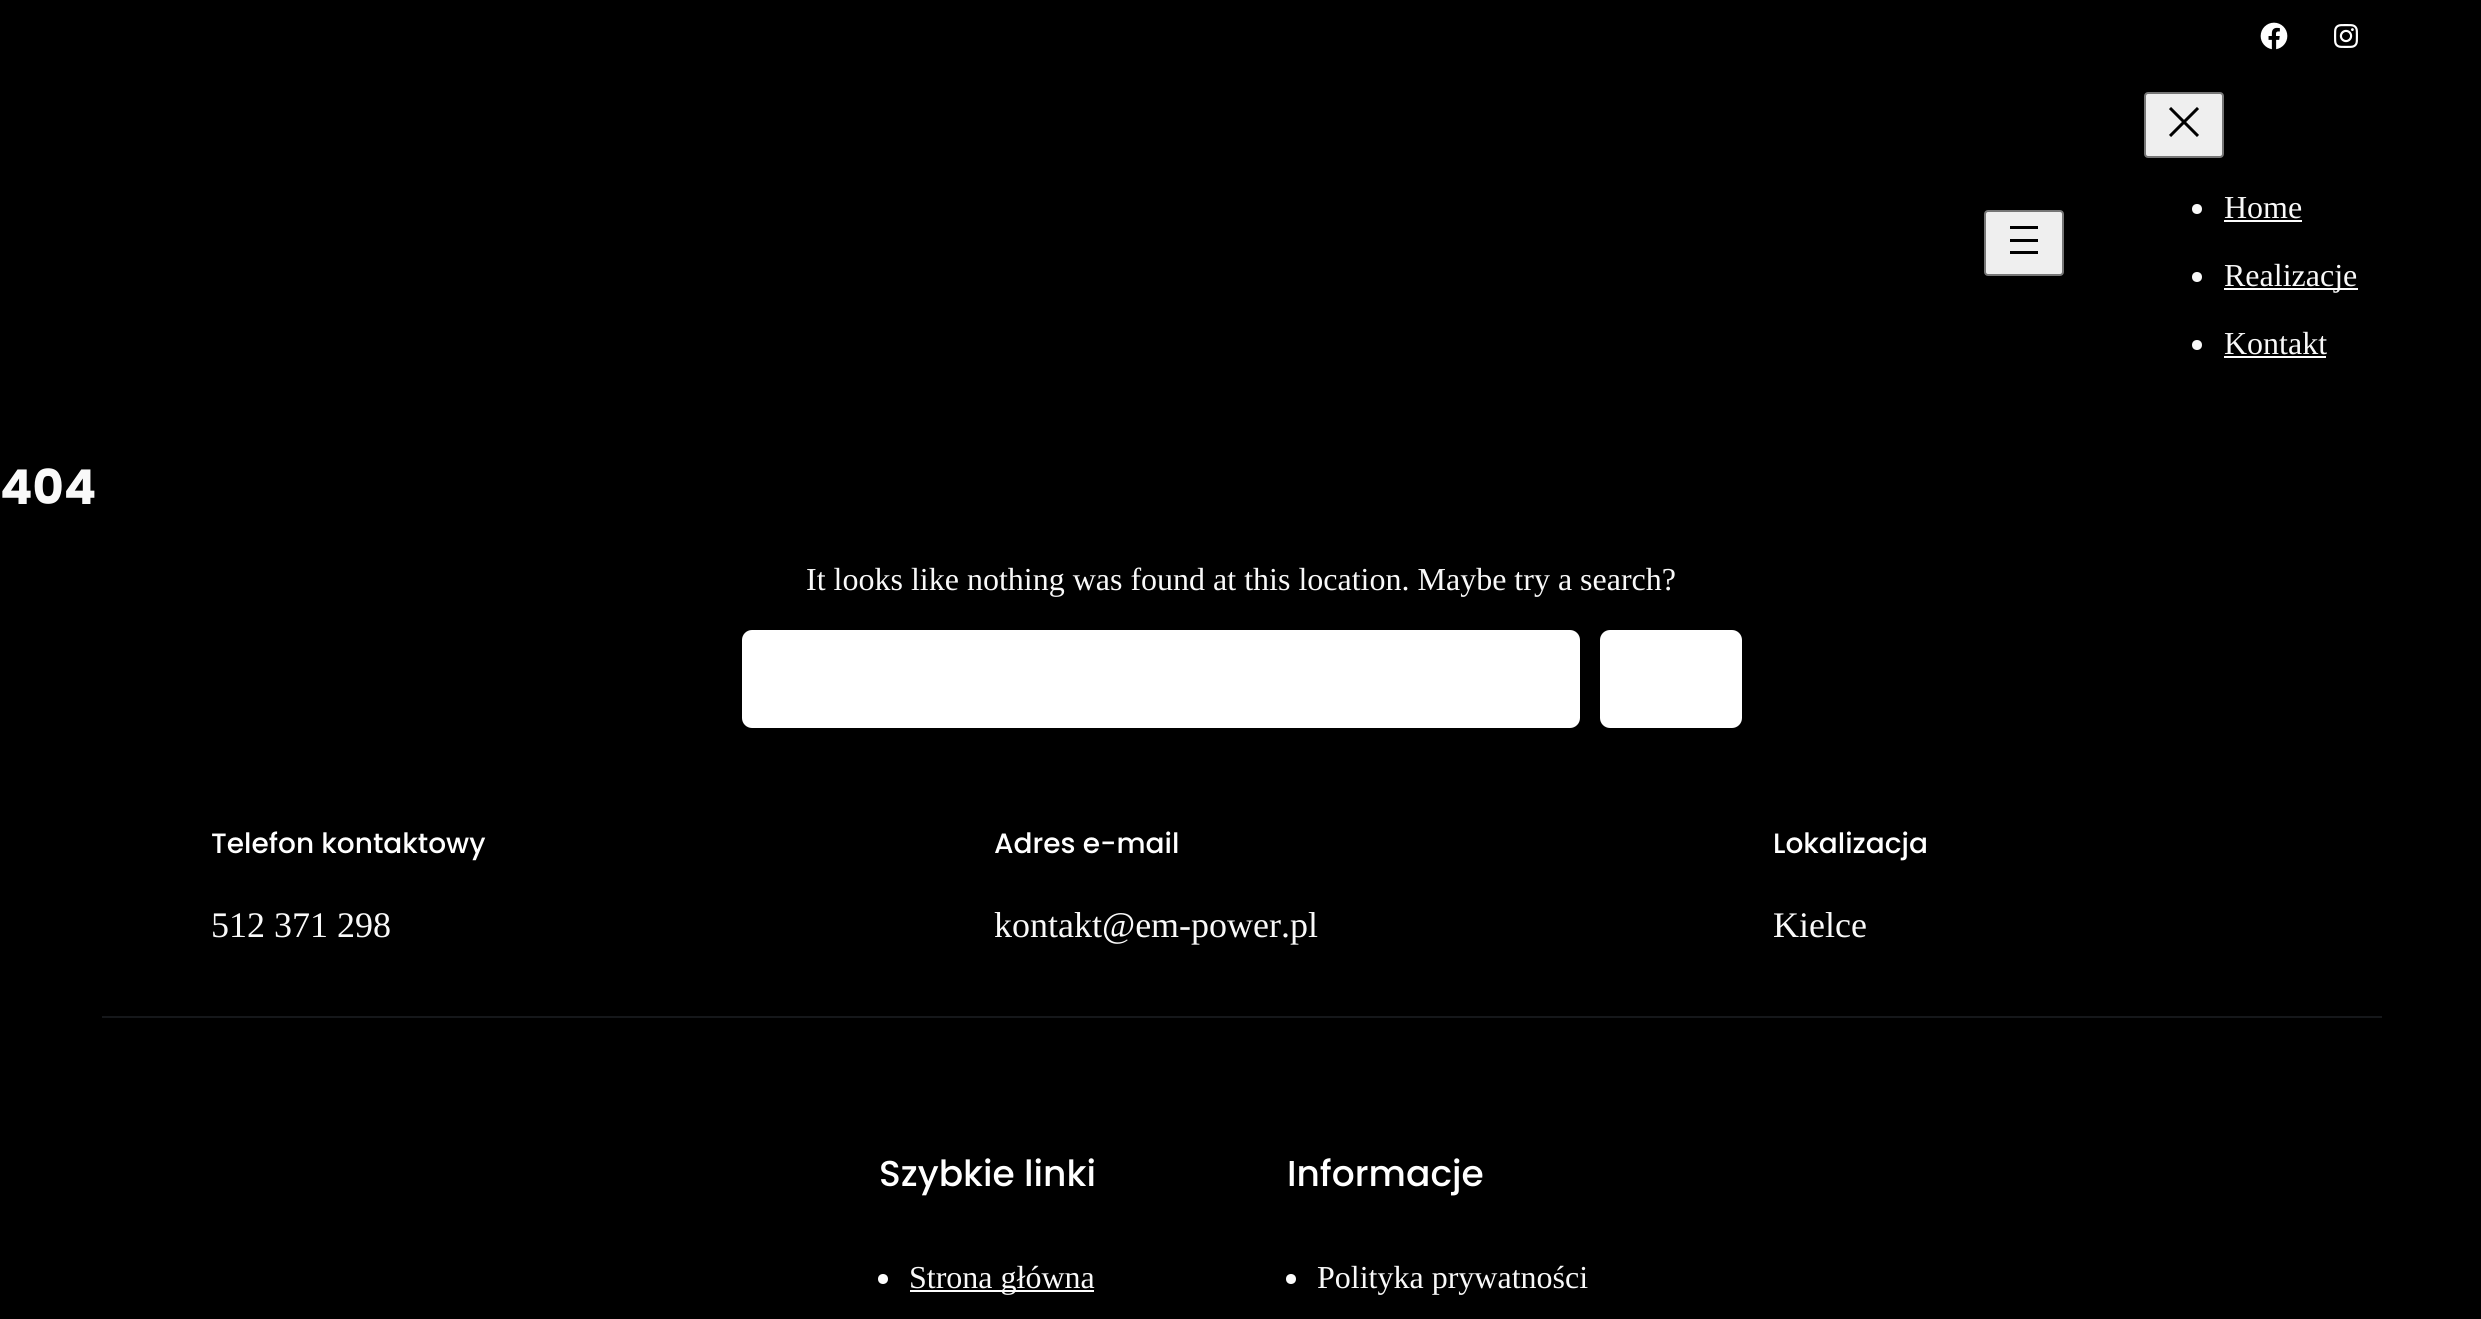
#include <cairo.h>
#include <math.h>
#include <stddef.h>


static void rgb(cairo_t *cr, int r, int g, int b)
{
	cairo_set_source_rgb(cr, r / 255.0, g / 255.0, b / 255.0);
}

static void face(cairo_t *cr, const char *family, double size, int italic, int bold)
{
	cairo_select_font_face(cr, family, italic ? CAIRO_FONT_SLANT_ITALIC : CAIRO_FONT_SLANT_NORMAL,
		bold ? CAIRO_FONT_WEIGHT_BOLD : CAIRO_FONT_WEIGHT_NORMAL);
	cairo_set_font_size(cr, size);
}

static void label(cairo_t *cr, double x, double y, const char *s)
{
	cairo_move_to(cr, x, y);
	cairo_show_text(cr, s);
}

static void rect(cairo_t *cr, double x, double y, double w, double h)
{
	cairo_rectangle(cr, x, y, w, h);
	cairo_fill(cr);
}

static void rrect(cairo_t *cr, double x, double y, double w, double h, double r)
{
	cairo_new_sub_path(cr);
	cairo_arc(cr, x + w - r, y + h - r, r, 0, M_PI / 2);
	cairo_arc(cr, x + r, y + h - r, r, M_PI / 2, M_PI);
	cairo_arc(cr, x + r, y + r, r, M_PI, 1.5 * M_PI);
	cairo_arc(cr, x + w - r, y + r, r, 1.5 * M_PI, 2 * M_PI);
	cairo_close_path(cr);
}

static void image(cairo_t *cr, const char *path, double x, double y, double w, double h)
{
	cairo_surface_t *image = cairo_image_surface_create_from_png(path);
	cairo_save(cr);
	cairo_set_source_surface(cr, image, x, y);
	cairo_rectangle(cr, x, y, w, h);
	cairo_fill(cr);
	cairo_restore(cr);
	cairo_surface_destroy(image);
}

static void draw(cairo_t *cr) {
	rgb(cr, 0, 0, 0);
	cairo_paint(cr);
	image(cr, "image0.png", 2260, 22, 28, 28);
	image(cr, "image1.png", 2334, 24, 24, 24);
	rgb(cr, 239, 239, 239);
	rrect(cr, 1985, 211, 78, 64, 3);
	cairo_fill_preserve(cr);
	rgb(cr, 118, 118, 118);
	cairo_stroke(cr);
	rgb(cr, 0, 0, 0);
	rect(cr, 2010, 226, 28, 3);
	rect(cr, 2010, 239, 28, 3);
	rect(cr, 2010, 251, 28, 3);
	rgb(cr, 239, 239, 239);
	rrect(cr, 2145, 93, 78, 64, 3);
	cairo_fill_preserve(cr);
	rgb(cr, 118, 118, 118);
	cairo_stroke(cr);
	image(cr, "image2.png", 2169, 107, 30, 30);
	rgb(cr, 249, 249, 249);
	cairo_arc(cr, 2197, 209, 5, 0, 2 * M_PI);
	cairo_fill(cr);
	face(cr, "Liberation Serif", 32, 0, 0);
	label(cr, 2224, 218, "Home");
	rgb(cr, 253, 253, 253);
	rect(cr, 2224, 220, 78, 2);
	rgb(cr, 249, 249, 249);
	cairo_new_path(cr);
	cairo_arc(cr, 2197, 277, 5, 0, 2 * M_PI);
	cairo_fill(cr);
	rgb(cr, 253, 253, 253);
	rect(cr, 2224, 288, 134, 2);
	rgb(cr, 249, 249, 249);
	label(cr, 2224, 286, "Realizacje");
	cairo_new_path(cr);
	cairo_arc(cr, 2197, 345, 5, 0, 2 * M_PI);
	cairo_fill(cr);
	label(cr, 2224, 354, "Kontakt");
	rgb(cr, 253, 253, 253);
	rect(cr, 2224, 356, 102, 2);
	face(cr, "Poppins", 48, 0, 1);
	rgb(cr, 249, 249, 249);
	label(cr, 0, 504, "404");
	face(cr, "Liberation Serif", 32, 0, 0);
	label(cr, 806, 590, "It looks like nothing was found at this location. Maybe try a search?");
	rgb(cr, 255, 255, 255);
	rrect(cr, 743, 631, 836, 96, 9);
	cairo_fill_preserve(cr);
	cairo_stroke(cr);
	rrect(cr, 1600, 630, 142, 98, 10);
	cairo_fill(cr);
	face(cr, "Poppins Medium", 28, 0, 0);
	label(cr, 211, 853, "Telefon kontaktowy");
	face(cr, "Liberation Serif", 36, 0, 0);
	rgb(cr, 249, 249, 249);
	label(cr, 211, 937, "512 371 298");
	face(cr, "Poppins Medium", 28, 0, 0);
	rgb(cr, 255, 255, 255);
	label(cr, 994, 853, "Adres e-mail");
	face(cr, "Liberation Serif", 36, 0, 0);
	rgb(cr, 249, 249, 249);
	label(cr, 994, 937, "kontakt@em-power.pl");
	face(cr, "Poppins Medium", 28, 0, 0);
	rgb(cr, 255, 255, 255);
	label(cr, 1773, 853, "Lokalizacja");
	face(cr, "Liberation Serif", 36, 0, 0);
	rgb(cr, 249, 249, 249);
	label(cr, 1773, 937, "Kielce");
	rgb(cr, 21, 23, 26);
	rect(cr, 102, 1016, 2280, 2);
	face(cr, "Poppins Medium", 36, 0, 0);
	rgb(cr, 255, 255, 255);
	label(cr, 879, 1186, "Szybkie linki");
	rgb(cr, 253, 253, 253);
	cairo_new_path(cr);
	cairo_arc(cr, 883, 1279, 5, 0, 2 * M_PI);
	cairo_fill(cr);
	rect(cr, 910, 1290, 184, 2);
	face(cr, "Liberation Serif", 32, 0, 0);
	rgb(cr, 249, 249, 249);
	label(cr, 909, 1288, "Strona główna");
	face(cr, "Poppins Medium", 36, 0, 0);
	rgb(cr, 255, 255, 255);
	label(cr, 1287, 1186, "Informacje");
	rgb(cr, 253, 253, 253);
	cairo_new_path(cr);
	cairo_arc(cr, 1291, 1279, 5, 0, 2 * M_PI);
	cairo_fill(cr);
	face(cr, "Liberation Serif", 32, 0, 0);
	rgb(cr, 249, 249, 249);
	label(cr, 1317, 1288, "Polityka prywatności");
}

int main(void) {
	cairo_surface_t *surface = cairo_image_surface_create(CAIRO_FORMAT_RGB24, 2481, 1319);
	cairo_t *cr = cairo_create(surface);
	cairo_font_options_t *options = cairo_font_options_create();
	cairo_font_options_set_hint_metrics(options, CAIRO_HINT_METRICS_OFF);
	cairo_font_options_set_hint_style(options, CAIRO_HINT_STYLE_NONE);
	cairo_set_font_options(cr, options);
	cairo_set_miter_limit(cr, 4);
	draw(cr);
	cairo_surface_write_to_png(surface, "render.png");
	cairo_font_options_destroy(options);
	cairo_destroy(cr);
	cairo_surface_destroy(surface);
	return 0;
}
